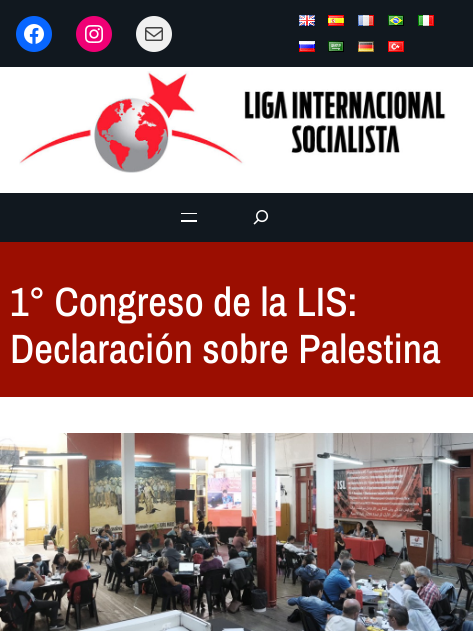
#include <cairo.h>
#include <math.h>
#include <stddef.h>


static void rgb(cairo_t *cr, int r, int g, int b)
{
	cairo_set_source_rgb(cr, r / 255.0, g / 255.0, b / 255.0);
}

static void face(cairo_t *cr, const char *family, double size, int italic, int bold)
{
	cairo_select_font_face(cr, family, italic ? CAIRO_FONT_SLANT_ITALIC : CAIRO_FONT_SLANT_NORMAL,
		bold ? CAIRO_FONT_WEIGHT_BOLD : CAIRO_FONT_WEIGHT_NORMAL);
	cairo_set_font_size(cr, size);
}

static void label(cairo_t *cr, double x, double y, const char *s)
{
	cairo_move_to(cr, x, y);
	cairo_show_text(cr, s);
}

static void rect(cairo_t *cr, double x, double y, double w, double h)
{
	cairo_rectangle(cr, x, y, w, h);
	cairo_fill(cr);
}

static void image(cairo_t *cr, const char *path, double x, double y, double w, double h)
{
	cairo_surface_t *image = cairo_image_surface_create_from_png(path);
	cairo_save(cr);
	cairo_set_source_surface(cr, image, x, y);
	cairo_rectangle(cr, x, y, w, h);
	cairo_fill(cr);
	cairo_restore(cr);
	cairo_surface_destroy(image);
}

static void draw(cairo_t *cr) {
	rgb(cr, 255, 255, 255);
	cairo_paint(cr);
	rgb(cr, 17, 24, 31);
	rect(cr, 0, 0, 473, 67);
	rgb(cr, 8, 102, 255);
	cairo_arc(cr, 34, 34, 18, 0, 2 * M_PI);
	cairo_fill(cr);
	image(cr, "image0.png", 24, 24, 20, 20);
	rgb(cr, 240, 0, 117);
	cairo_arc(cr, 94, 34, 18, 0, 2 * M_PI);
	cairo_fill(cr);
	image(cr, "image1.png", 85, 25, 18, 18);
	rgb(cr, 240, 240, 240);
	cairo_arc(cr, 154, 34, 18, 0, 2 * M_PI);
	cairo_fill(cr);
	image(cr, "image2.png", 145, 27, 18, 14);
	image(cr, "image3.png", 299, 15, 16, 11);
	image(cr, "image4.png", 328, 15, 16, 11);
	image(cr, "image5.png", 358, 15, 16, 11);
	image(cr, "image6.png", 388, 15, 16, 11);
	image(cr, "image7.png", 418, 15, 16, 11);
	image(cr, "image8.png", 299, 41, 16, 11);
	image(cr, "image9.png", 328, 41, 16, 11);
	image(cr, "image10.png", 358, 41, 16, 11);
	image(cr, "image11.png", 388, 41, 16, 11);
	image(cr, "image12.png", 19, 71, 427, 102);
	rgb(cr, 17, 24, 31);
	rect(cr, 0, 193, 473, 49);
	rgb(cr, 255, 255, 255);
	rect(cr, 181, 213, 16, 1);
	rect(cr, 181, 220, 16, 2);
	image(cr, "image13.png", 253, 210, 16, 15);
	rgb(cr, 155, 14, 1);
	rect(cr, 0, 242, 473, 155);
	face(cr, "Archivo Narrow Medium", 41, 0, 0);
	rgb(cr, 255, 255, 255);
	label(cr, 10, 316, "1° Congreso de la LIS:");
	label(cr, 10, 363, "Declaración sobre Palestina");
	image(cr, "image14.png", 0, 433, 473, 198);
}

int main(void) {
	cairo_surface_t *surface = cairo_image_surface_create(CAIRO_FORMAT_RGB24, 473, 631);
	cairo_t *cr = cairo_create(surface);
	cairo_font_options_t *options = cairo_font_options_create();
	cairo_font_options_set_hint_metrics(options, CAIRO_HINT_METRICS_OFF);
	cairo_font_options_set_hint_style(options, CAIRO_HINT_STYLE_NONE);
	cairo_set_font_options(cr, options);
	cairo_set_miter_limit(cr, 4);
	draw(cr);
	cairo_surface_write_to_png(surface, "render.png");
	cairo_font_options_destroy(options);
	cairo_destroy(cr);
	cairo_surface_destroy(surface);
	return 0;
}
